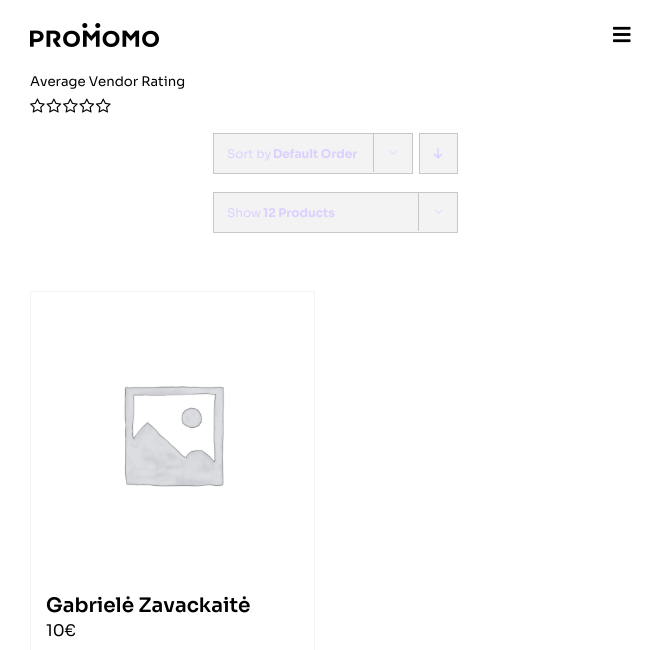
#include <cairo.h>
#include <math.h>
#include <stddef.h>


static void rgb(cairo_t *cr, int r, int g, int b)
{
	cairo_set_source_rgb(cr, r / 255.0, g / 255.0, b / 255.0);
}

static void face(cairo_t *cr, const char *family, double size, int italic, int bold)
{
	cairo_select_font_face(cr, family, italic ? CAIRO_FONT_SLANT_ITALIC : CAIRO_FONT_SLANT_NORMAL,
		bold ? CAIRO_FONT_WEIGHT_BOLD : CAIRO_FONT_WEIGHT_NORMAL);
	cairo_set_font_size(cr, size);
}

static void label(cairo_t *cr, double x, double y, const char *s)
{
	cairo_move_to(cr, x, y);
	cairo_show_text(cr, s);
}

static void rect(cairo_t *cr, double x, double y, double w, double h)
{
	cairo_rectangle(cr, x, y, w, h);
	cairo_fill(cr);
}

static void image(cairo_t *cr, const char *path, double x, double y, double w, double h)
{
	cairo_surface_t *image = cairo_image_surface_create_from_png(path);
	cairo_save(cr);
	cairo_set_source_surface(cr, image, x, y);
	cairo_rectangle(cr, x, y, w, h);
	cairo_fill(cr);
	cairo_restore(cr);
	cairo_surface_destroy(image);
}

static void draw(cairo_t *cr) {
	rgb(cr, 255, 255, 255);
	cairo_paint(cr);
	image(cr, "image0.png", 30, 23, 129, 24);
	image(cr, "image1.png", 613, 26, 18, 17);
	face(cr, "Sora", 13.25, 0, 0);
	rgb(cr, 0, 0, 0);
	label(cr, 30, 86, "Average Vendor Rating");
	image(cr, "image2.png", 30, 98, 81, 15);
	rgb(cr, 243, 243, 243);
	cairo_rectangle(cr, 213.5, 133.5, 199, 40);
	cairo_fill_preserve(cr);
	rgb(cr, 199, 199, 199);
	cairo_set_line_width(cr, 1);
	cairo_stroke(cr);
	face(cr, "Sora", 12, 0, 0);
	rgb(cr, 220, 208, 255);
	label(cr, 227, 158, "Sort by");
	face(cr, "Sora", 12, 0, 1);
	label(cr, 273, 158, "Default Order");
	rgb(cr, 199, 199, 199);
	rect(cr, 373, 133, 1, 39);
	image(cr, "image3.png", 389, 150, 9, 5);
	rgb(cr, 243, 243, 243);
	cairo_rectangle(cr, 419.5, 133.5, 38, 40);
	cairo_fill_preserve(cr);
	rgb(cr, 199, 199, 199);
	cairo_stroke(cr);
	image(cr, "image4.png", 433, 148, 10, 11);
	rgb(cr, 243, 243, 243);
	cairo_rectangle(cr, 213.5, 192.5, 244, 40);
	cairo_fill_preserve(cr);
	rgb(cr, 199, 199, 199);
	cairo_stroke(cr);
	face(cr, "Sora", 12, 0, 0);
	rgb(cr, 220, 208, 255);
	label(cr, 227, 217, "Show");
	face(cr, "Sora", 12, 0, 1);
	label(cr, 263, 217, "12 Products");
	rgb(cr, 199, 199, 199);
	rect(cr, 418, 192, 1, 39);
	image(cr, "image3.png", 434, 209, 9, 5);
	rgb(cr, 243, 243, 243);
	rect(cr, 30, 291, 285, 1);
	rect(cr, 314, 291, 1, 359);
	rect(cr, 30, 291, 1, 359);
	image(cr, "image5.png", 124, 386, 101, 101);
	face(cr, "Sora SemiBold", 20, 0, 0);
	rgb(cr, 0, 0, 0);
	label(cr, 46, 612, "Gabrielė Zavackaitė");
	face(cr, "Sora", 16, 0, 0);
	label(cr, 46, 636, "10€");
}

int main(void) {
	cairo_surface_t *surface = cairo_image_surface_create(CAIRO_FORMAT_RGB24, 670, 650);
	cairo_t *cr = cairo_create(surface);
	cairo_font_options_t *options = cairo_font_options_create();
	cairo_font_options_set_hint_metrics(options, CAIRO_HINT_METRICS_OFF);
	cairo_font_options_set_hint_style(options, CAIRO_HINT_STYLE_NONE);
	cairo_set_font_options(cr, options);
	cairo_set_miter_limit(cr, 4);
	draw(cr);
	cairo_surface_write_to_png(surface, "render.png");
	cairo_font_options_destroy(options);
	cairo_destroy(cr);
	cairo_surface_destroy(surface);
	return 0;
}
